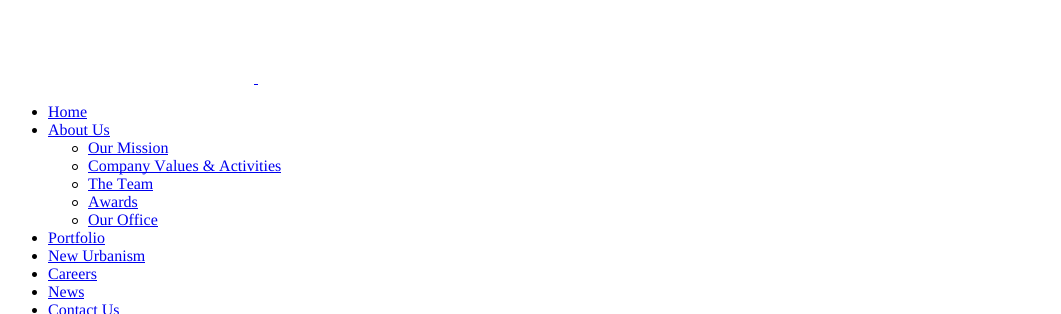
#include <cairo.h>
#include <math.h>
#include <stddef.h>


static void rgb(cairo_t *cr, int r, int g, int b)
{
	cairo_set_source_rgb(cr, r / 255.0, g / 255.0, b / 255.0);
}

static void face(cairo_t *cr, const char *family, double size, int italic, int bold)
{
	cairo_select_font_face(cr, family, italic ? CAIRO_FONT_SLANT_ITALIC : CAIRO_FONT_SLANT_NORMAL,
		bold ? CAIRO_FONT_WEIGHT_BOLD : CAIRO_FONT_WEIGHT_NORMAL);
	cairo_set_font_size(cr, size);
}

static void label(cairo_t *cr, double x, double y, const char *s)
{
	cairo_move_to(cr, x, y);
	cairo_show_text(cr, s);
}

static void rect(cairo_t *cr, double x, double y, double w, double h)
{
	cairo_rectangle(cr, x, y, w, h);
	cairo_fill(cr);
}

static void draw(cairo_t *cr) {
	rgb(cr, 255, 255, 255);
	cairo_paint(cr);
	rgb(cr, 0, 0, 238);
	rect(cr, 254, 84, 4, 1);
	rgb(cr, 0, 0, 0);
	cairo_arc(cr, 34.5, 112.5, 2.5, 0, 2 * M_PI);
	cairo_fill(cr);
	face(cr, "Liberation Serif", 16, 0, 0);
	rgb(cr, 0, 0, 238);
	label(cr, 48, 117, "Home");
	rect(cr, 48, 118, 39, 1);
	rgb(cr, 0, 0, 0);
	cairo_new_path(cr);
	cairo_arc(cr, 34.5, 130.5, 2.5, 0, 2 * M_PI);
	cairo_fill(cr);
	rgb(cr, 0, 0, 238);
	label(cr, 48, 135, "About Us");
	rect(cr, 48, 136, 62, 1);
	cairo_new_path(cr);
	cairo_arc(cr, 75, 149, 2.5, 0, 2 * M_PI);
	rgb(cr, 0, 0, 0);
	cairo_set_line_width(cr, 1);
	cairo_stroke(cr);
	rgb(cr, 0, 0, 238);
	label(cr, 88, 153, "Our Mission");
	rect(cr, 88, 154, 80, 1);
	cairo_new_path(cr);
	cairo_arc(cr, 75, 167, 2.5, 0, 2 * M_PI);
	rgb(cr, 0, 0, 0);
	cairo_stroke(cr);
	rgb(cr, 0, 0, 238);
	rect(cr, 88, 172, 193, 1);
	label(cr, 88, 171, "Company Values & Activities");
	cairo_new_path(cr);
	cairo_arc(cr, 75, 185, 2.5, 0, 2 * M_PI);
	rgb(cr, 0, 0, 0);
	cairo_stroke(cr);
	rgb(cr, 0, 0, 238);
	label(cr, 88, 189, "The Team");
	rect(cr, 88, 190, 65, 1);
	cairo_new_path(cr);
	cairo_arc(cr, 75, 203, 2.5, 0, 2 * M_PI);
	rgb(cr, 0, 0, 0);
	cairo_stroke(cr);
	rgb(cr, 0, 0, 238);
	label(cr, 88, 207, "Awards");
	rect(cr, 88, 208, 50, 1);
	cairo_new_path(cr);
	cairo_arc(cr, 75, 221, 2.5, 0, 2 * M_PI);
	rgb(cr, 0, 0, 0);
	cairo_stroke(cr);
	rgb(cr, 0, 0, 238);
	label(cr, 88, 225, "Our Office");
	rect(cr, 88, 226, 70, 1);
	rgb(cr, 0, 0, 0);
	cairo_new_path(cr);
	cairo_arc(cr, 34.5, 238.5, 2.5, 0, 2 * M_PI);
	cairo_fill(cr);
	rgb(cr, 0, 0, 238);
	label(cr, 48, 243, "Portfolio");
	rect(cr, 48, 244, 57, 1);
	rgb(cr, 0, 0, 0);
	cairo_new_path(cr);
	cairo_arc(cr, 34.5, 256.5, 2.5, 0, 2 * M_PI);
	cairo_fill(cr);
	rgb(cr, 0, 0, 238);
	label(cr, 48, 261, "New Urbanism");
	rect(cr, 48, 262, 97, 1);
	rgb(cr, 0, 0, 0);
	cairo_new_path(cr);
	cairo_arc(cr, 34.5, 274.5, 2.5, 0, 2 * M_PI);
	cairo_fill(cr);
	rgb(cr, 0, 0, 238);
	label(cr, 48, 279, "Careers");
	rect(cr, 48, 280, 49, 1);
	rgb(cr, 0, 0, 0);
	cairo_new_path(cr);
	cairo_arc(cr, 34.5, 292.5, 2.5, 0, 2 * M_PI);
	cairo_fill(cr);
	rgb(cr, 0, 0, 238);
	label(cr, 48, 297, "News");
	rect(cr, 48, 298, 36, 1);
	rgb(cr, 0, 0, 0);
	cairo_new_path(cr);
	cairo_arc(cr, 34.5, 310.5, 2.5, 0, 2 * M_PI);
	cairo_fill(cr);
	rgb(cr, 0, 0, 238);
	label(cr, 48, 315, "Contact Us");
}

int main(void) {
	cairo_surface_t *surface = cairo_image_surface_create(CAIRO_FORMAT_RGB24, 1061, 314);
	cairo_t *cr = cairo_create(surface);
	cairo_font_options_t *options = cairo_font_options_create();
	cairo_font_options_set_hint_metrics(options, CAIRO_HINT_METRICS_OFF);
	cairo_font_options_set_hint_style(options, CAIRO_HINT_STYLE_NONE);
	cairo_set_font_options(cr, options);
	cairo_set_miter_limit(cr, 4);
	draw(cr);
	cairo_surface_write_to_png(surface, "render.png");
	cairo_font_options_destroy(options);
	cairo_destroy(cr);
	cairo_surface_destroy(surface);
	return 0;
}
